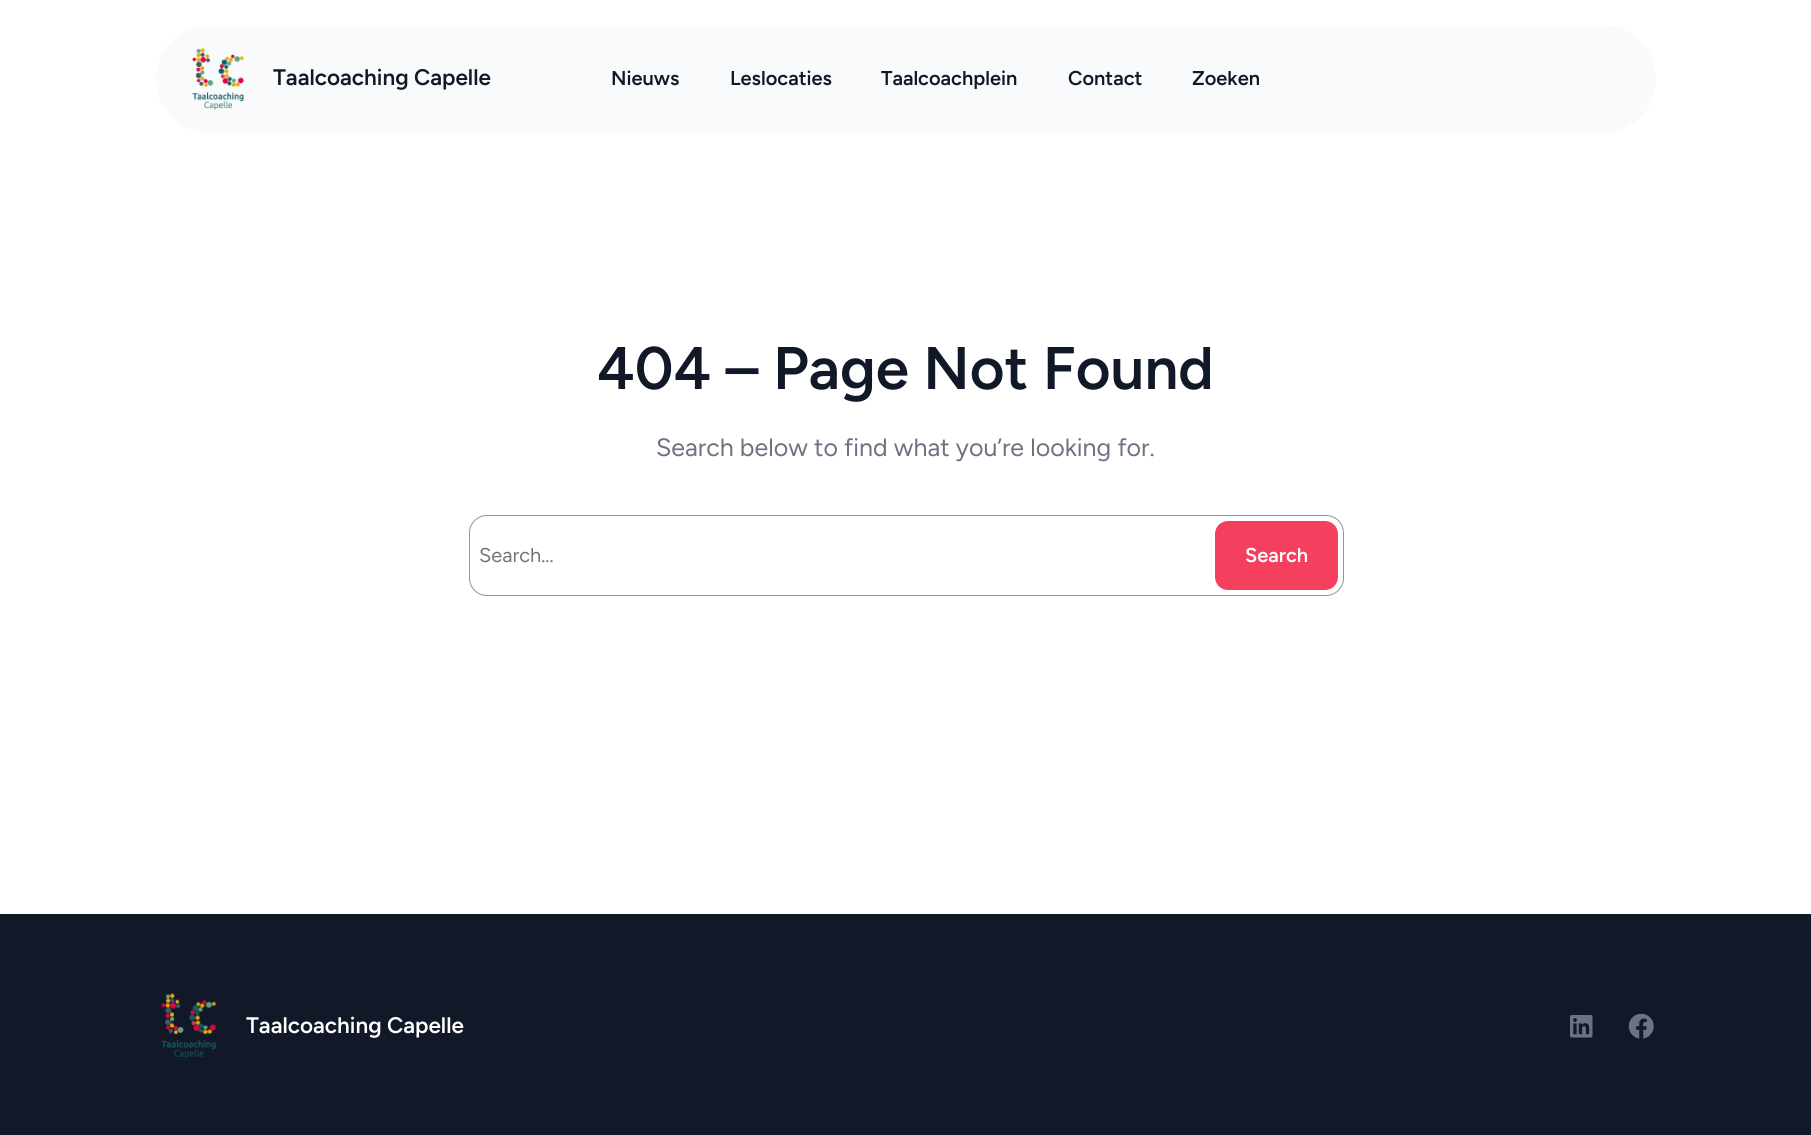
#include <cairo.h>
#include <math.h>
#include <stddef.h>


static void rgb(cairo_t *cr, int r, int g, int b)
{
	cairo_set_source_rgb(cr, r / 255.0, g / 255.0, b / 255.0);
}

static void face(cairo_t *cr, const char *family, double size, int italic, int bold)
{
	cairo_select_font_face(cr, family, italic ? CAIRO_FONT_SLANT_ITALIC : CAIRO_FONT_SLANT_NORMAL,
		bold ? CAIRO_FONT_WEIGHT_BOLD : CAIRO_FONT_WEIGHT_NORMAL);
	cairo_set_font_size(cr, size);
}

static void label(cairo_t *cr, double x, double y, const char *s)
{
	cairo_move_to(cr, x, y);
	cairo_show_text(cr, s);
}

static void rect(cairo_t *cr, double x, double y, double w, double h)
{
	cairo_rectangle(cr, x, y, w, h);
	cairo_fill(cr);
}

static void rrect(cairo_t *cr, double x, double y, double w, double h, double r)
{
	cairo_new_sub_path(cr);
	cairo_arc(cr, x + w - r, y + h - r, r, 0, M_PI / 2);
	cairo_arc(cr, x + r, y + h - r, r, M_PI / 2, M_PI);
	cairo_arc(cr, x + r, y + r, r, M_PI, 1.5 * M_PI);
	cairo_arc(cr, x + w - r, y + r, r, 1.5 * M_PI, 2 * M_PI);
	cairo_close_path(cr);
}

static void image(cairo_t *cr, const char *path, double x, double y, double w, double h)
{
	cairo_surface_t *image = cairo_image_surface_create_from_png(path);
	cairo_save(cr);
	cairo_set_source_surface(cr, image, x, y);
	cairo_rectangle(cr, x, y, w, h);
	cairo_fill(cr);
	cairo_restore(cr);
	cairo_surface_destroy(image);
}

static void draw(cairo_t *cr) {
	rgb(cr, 255, 255, 255);
	cairo_paint(cr);
	rgb(cr, 249, 250, 251);
	rrect(cr, 156, 25, 1500, 108, 54);
	cairo_fill(cr);
	image(cr, "image0.png", 192, 48, 53, 62);
	face(cr, "Figtree SemiBold", 22.5, 0, 0);
	rgb(cr, 17, 24, 39);
	label(cr, 273, 85, "Taalcoaching Capelle");
	face(cr, "Figtree SemiBold", 20, 0, 0);
	label(cr, 611, 85, "Nieuws");
	label(cr, 730, 85, "Leslocaties");
	label(cr, 881, 85, "Taalcoachplein");
	label(cr, 1068, 85, "Contact");
	label(cr, 1192, 85, "Zoeken");
	face(cr, "Figtree SemiBold", 60, 0, 0);
	label(cr, 597, 389, "404 – Page Not Found");
	face(cr, "Figtree", 25, 0, 0);
	rgb(cr, 107, 114, 128);
	label(cr, 656, 456, "Search below to find what you’re looking for.");
	rrect(cr, 469.5, 515.5, 874, 80, 17.5);
	rgb(cr, 148, 148, 148);
	cairo_set_line_width(cr, 1);
	cairo_stroke(cr);
	face(cr, "Figtree", 20, 0, 0);
	rgb(cr, 117, 117, 117);
	label(cr, 479, 562, "Search...");
	rgb(cr, 244, 63, 94);
	rrect(cr, 1215, 521, 123, 69, 13);
	cairo_fill(cr);
	face(cr, "Figtree SemiBold", 20, 0, 0);
	rgb(cr, 255, 255, 255);
	label(cr, 1245, 562, "Search");
	rgb(cr, 17, 24, 39);
	rect(cr, 0, 914, 1811, 221);
	image(cr, "image1.png", 161, 993, 56, 66);
	face(cr, "Figtree SemiBold", 22.5, 0, 0);
	rgb(cr, 255, 255, 255);
	label(cr, 246, 1033, "Taalcoaching Capelle");
	image(cr, "image2.png", 1570, 1015, 23, 23);
	image(cr, "image3.png", 1628, 1013, 26, 26);
}

int main(void) {
	cairo_surface_t *surface = cairo_image_surface_create(CAIRO_FORMAT_RGB24, 1811, 1135);
	cairo_t *cr = cairo_create(surface);
	cairo_font_options_t *options = cairo_font_options_create();
	cairo_font_options_set_hint_metrics(options, CAIRO_HINT_METRICS_OFF);
	cairo_font_options_set_hint_style(options, CAIRO_HINT_STYLE_NONE);
	cairo_set_font_options(cr, options);
	cairo_set_miter_limit(cr, 4);
	draw(cr);
	cairo_surface_write_to_png(surface, "render.png");
	cairo_font_options_destroy(options);
	cairo_destroy(cr);
	cairo_surface_destroy(surface);
	return 0;
}
